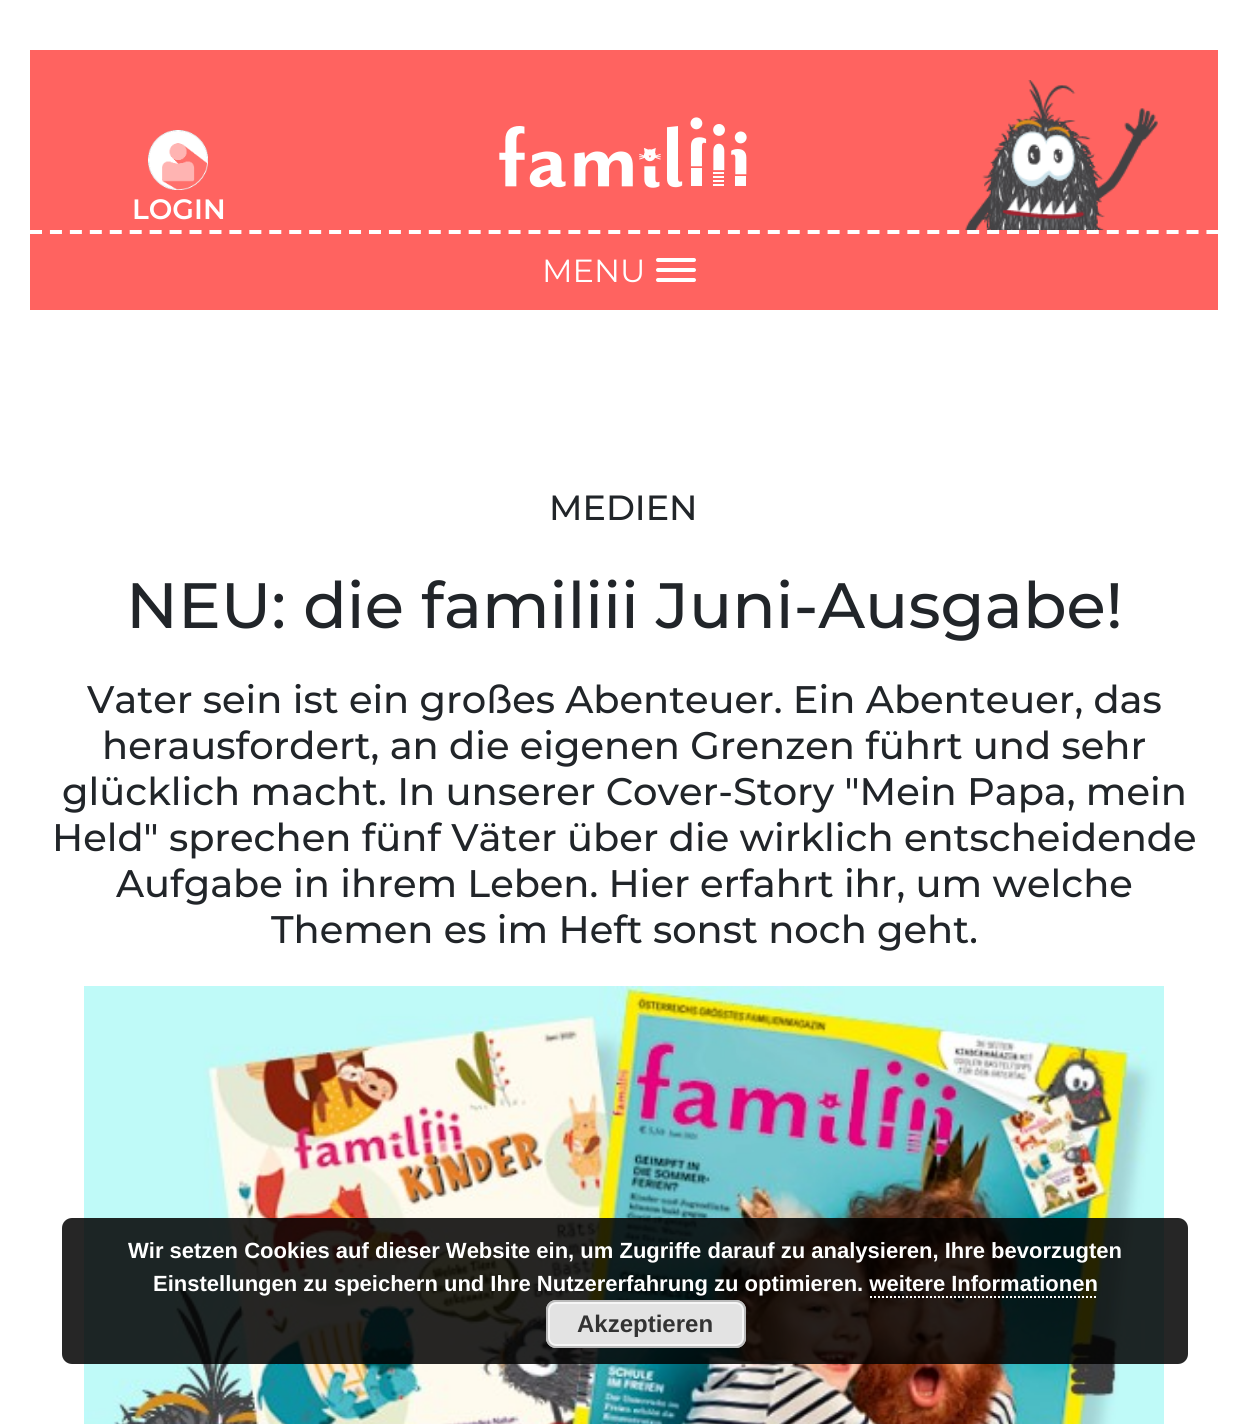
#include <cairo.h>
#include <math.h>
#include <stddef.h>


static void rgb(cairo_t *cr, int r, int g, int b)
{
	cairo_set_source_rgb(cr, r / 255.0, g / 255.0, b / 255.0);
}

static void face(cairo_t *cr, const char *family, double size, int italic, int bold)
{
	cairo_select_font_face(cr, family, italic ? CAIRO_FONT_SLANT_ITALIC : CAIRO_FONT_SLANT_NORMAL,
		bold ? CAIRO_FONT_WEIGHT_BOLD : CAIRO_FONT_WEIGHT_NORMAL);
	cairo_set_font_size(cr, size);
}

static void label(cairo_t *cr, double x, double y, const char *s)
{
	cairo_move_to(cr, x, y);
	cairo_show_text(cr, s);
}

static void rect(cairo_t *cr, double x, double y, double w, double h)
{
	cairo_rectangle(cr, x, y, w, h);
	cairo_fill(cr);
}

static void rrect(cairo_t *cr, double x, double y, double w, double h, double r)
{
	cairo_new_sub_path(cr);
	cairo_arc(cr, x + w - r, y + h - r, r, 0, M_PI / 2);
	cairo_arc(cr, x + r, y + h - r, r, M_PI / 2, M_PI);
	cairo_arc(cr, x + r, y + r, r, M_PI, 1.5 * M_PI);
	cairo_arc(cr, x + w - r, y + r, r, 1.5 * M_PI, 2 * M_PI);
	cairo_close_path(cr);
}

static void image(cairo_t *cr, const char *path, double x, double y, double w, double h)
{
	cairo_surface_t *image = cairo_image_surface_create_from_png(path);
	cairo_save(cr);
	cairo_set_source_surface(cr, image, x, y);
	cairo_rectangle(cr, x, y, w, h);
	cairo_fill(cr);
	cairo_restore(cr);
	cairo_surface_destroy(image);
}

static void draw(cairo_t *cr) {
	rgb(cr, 255, 255, 255);
	cairo_paint(cr);
	rgb(cr, 255, 99, 96);
	rect(cr, 30, 50, 1188, 260);
	image(cr, "image0.png", 499, 117, 248, 71);
	image(cr, "image1.png", 965, 80, 193, 150);
	image(cr, "image2.png", 148, 130, 60, 60);
	face(cr, "Montserrat SemiBold", 28, 0, 0);
	rgb(cr, 255, 255, 255);
	label(cr, 132, 219, "LOGIN");
	cairo_new_path(cr);
	cairo_move_to(cr, 30, 232);
	cairo_line_to(cr, 1218, 232);
	cairo_set_line_width(cr, 4);
	cairo_set_dash(cr, (double[]){12, 7.94}, 2, 0);
	cairo_stroke(cr);
	face(cr, "Montserrat", 32, 0, 0);
	label(cr, 542, 282, "MENU");
	rrect(cr, 656, 278, 40, 4, 2);
	cairo_fill(cr);
	rrect(cr, 656, 258, 40, 4, 2);
	cairo_fill(cr);
	rrect(cr, 656, 268, 40, 4, 2);
	cairo_fill(cr);
	face(cr, "Montserrat Medium", 35, 0, 0);
	rgb(cr, 33, 37, 41);
	label(cr, 549, 520, "MEDIEN");
	face(cr, "Montserrat Medium", 64, 0, 0);
	label(cr, 126, 628, "NEU: die familiii Juni-Ausgabe!");
	face(cr, "Montserrat Medium", 38.4, 0, 0);
	label(cr, 87, 713, "Vater sein ist ein großes Abenteuer. Ein Abenteuer, das");
	label(cr, 102, 759, "herausfordert, an die eigenen Grenzen führt und sehr");
	label(cr, 62, 805, "glücklich macht. In unserer Cover-Story \"Mein Papa, mein");
	label(cr, 52, 851, "Held\" sprechen fünf Väter über die wirklich entscheidende");
	label(cr, 116, 897, "Aufgabe in ihrem Leben. Hier erfahrt ihr, um welche");
	label(cr, 271, 943, "Themen es im Heft sonst noch geht.");
	image(cr, "image3.png", 84, 986, 1080, 438);
	cairo_set_source_rgba(cr, 0, 0, 0, 0.85);
	rrect(cr, 62, 1218, 1126, 146, 10);
	cairo_fill(cr);
	face(cr, "Liberation Sans", 22, 0, 1);
	rgb(cr, 255, 255, 255);
	label(cr, 128, 1258, "Wir setzen Cookies auf dieser Website ein, um Zugriffe darauf zu analysieren, Ihre bevorzugten");
	label(cr, 153, 1291, "Einstellungen zu speichern und Ihre Nutzererfahrung zu optimieren. weitere Informationen");
	cairo_new_path(cr);
	cairo_move_to(cr, 870, 1297);
	cairo_line_to(cr, 1098, 1297);
	cairo_set_line_width(cr, 2);
	cairo_set_dash(cr, (double[]){2, 2}, 2, 0);
	cairo_stroke(cr);
	rgb(cr, 227, 227, 227);
	rrect(cr, 546, 1300, 200, 48, 10);
	cairo_fill(cr);
	rrect(cr, 549, 1303, 194, 42, 7);
	rgb(cr, 246, 246, 246);
	cairo_set_dash(cr, NULL, 0, 0);
	cairo_stroke(cr);
	rrect(cr, 547, 1301, 198, 46, 9);
	rgb(cr, 187, 187, 187);
	cairo_stroke(cr);
	face(cr, "Liberation Sans", 24, 0, 1);
	rgb(cr, 51, 51, 51);
	label(cr, 577, 1332, "Akzeptieren");
}

int main(void) {
	cairo_surface_t *surface = cairo_image_surface_create(CAIRO_FORMAT_RGB24, 1247, 1424);
	cairo_t *cr = cairo_create(surface);
	cairo_font_options_t *options = cairo_font_options_create();
	cairo_font_options_set_hint_metrics(options, CAIRO_HINT_METRICS_OFF);
	cairo_font_options_set_hint_style(options, CAIRO_HINT_STYLE_NONE);
	cairo_set_font_options(cr, options);
	cairo_set_miter_limit(cr, 4);
	draw(cr);
	cairo_surface_write_to_png(surface, "render.png");
	cairo_font_options_destroy(options);
	cairo_destroy(cr);
	cairo_surface_destroy(surface);
	return 0;
}
